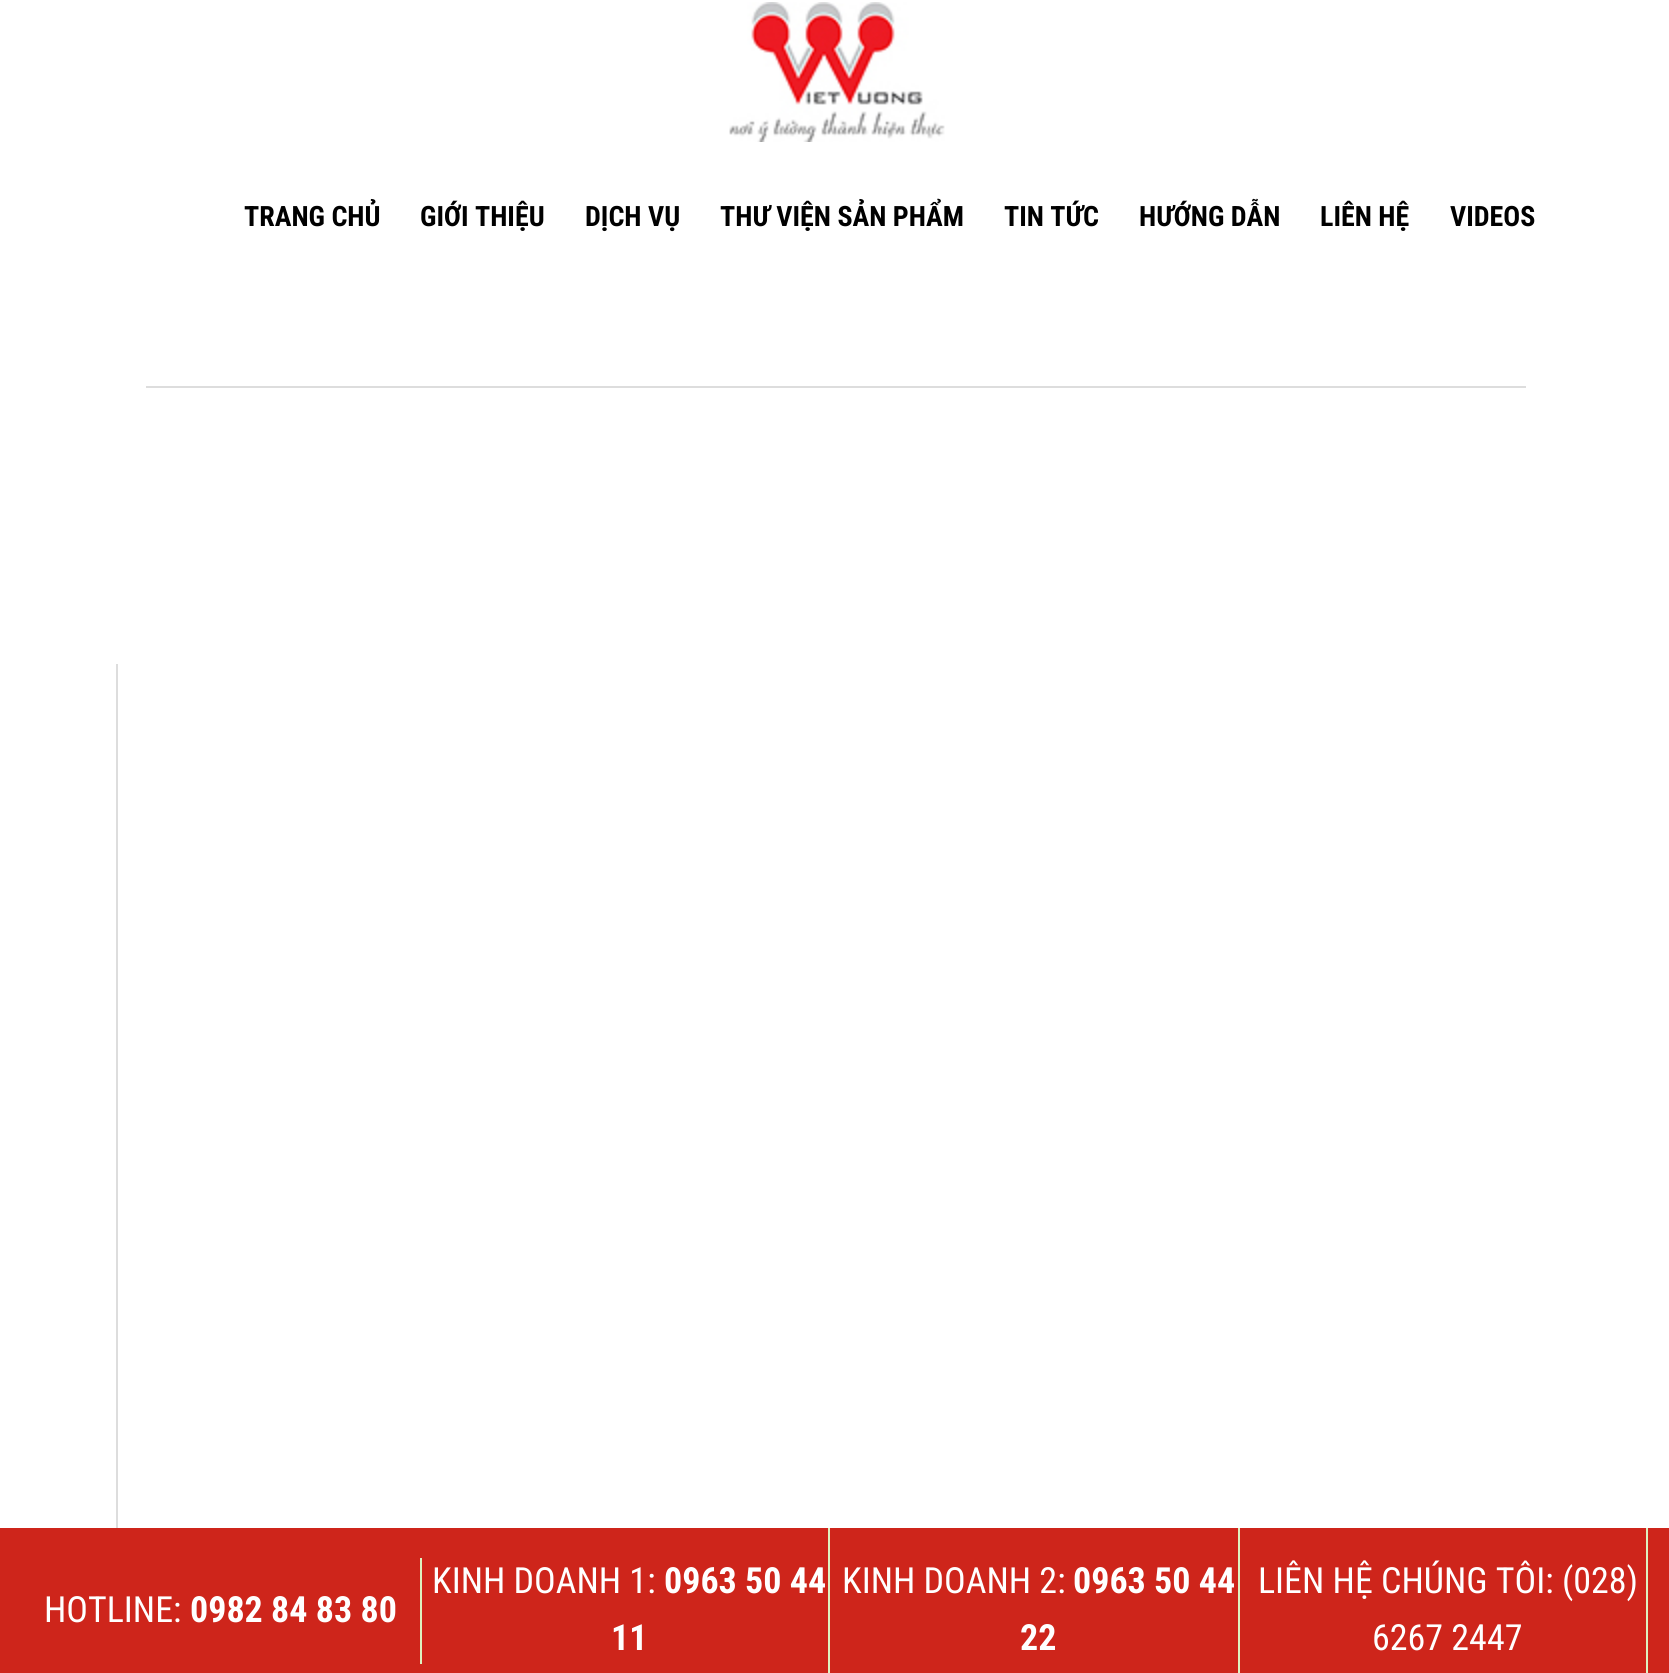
#include <cairo.h>
#include <math.h>
#include <stddef.h>


static void rgb(cairo_t *cr, int r, int g, int b)
{
	cairo_set_source_rgb(cr, r / 255.0, g / 255.0, b / 255.0);
}

static void face(cairo_t *cr, const char *family, double size, int italic, int bold)
{
	cairo_select_font_face(cr, family, italic ? CAIRO_FONT_SLANT_ITALIC : CAIRO_FONT_SLANT_NORMAL,
		bold ? CAIRO_FONT_WEIGHT_BOLD : CAIRO_FONT_WEIGHT_NORMAL);
	cairo_set_font_size(cr, size);
}

static void label(cairo_t *cr, double x, double y, const char *s)
{
	cairo_move_to(cr, x, y);
	cairo_show_text(cr, s);
}

static void rect(cairo_t *cr, double x, double y, double w, double h)
{
	cairo_rectangle(cr, x, y, w, h);
	cairo_fill(cr);
}

static void image(cairo_t *cr, const char *path, double x, double y, double w, double h)
{
	cairo_surface_t *image = cairo_image_surface_create_from_png(path);
	cairo_save(cr);
	cairo_set_source_surface(cr, image, x, y);
	cairo_rectangle(cr, x, y, w, h);
	cairo_fill(cr);
	cairo_restore(cr);
	cairo_surface_destroy(image);
}

static void draw(cairo_t *cr) {
	rgb(cr, 255, 255, 255);
	cairo_paint(cr);
	image(cr, "image0.png", 729, 2, 216, 140);
	face(cr, "Roboto Condensed", 28, 0, 1);
	rgb(cr, 0, 0, 0);
	label(cr, 244, 226, "TRANG CHỦ");
	label(cr, 420, 226, "GIỚI THIỆU");
	label(cr, 585, 226, "DỊCH VỤ");
	label(cr, 720, 226, "THƯ VIỆN SẢN PHẨM");
	label(cr, 1004, 226, "TIN TỨC");
	label(cr, 1139, 226, "HƯỚNG DẪN");
	label(cr, 1320, 226, "LIÊN HỆ");
	label(cr, 1450, 226, "VIDEOS");
	rgb(cr, 221, 221, 221);
	rect(cr, 146, 386, 1380, 2);
	rect(cr, 116, 664, 2, 864);
	rgb(cr, 206, 37, 27);
	rect(cr, 0, 1528, 1669, 145);
	rgb(cr, 221, 242, 193);
	rect(cr, 420, 1558, 2, 106);
	face(cr, "Roboto Condensed", 36, 0, 0);
	rgb(cr, 255, 255, 255);
	label(cr, 44, 1622, "HOTLINE:");
	face(cr, "Roboto Condensed", 36, 0, 1);
	label(cr, 190, 1622, "0982 84 83 80");
	rgb(cr, 221, 242, 193);
	rect(cr, 828, 1528, 2, 145);
	face(cr, "Roboto Condensed", 36, 0, 0);
	rgb(cr, 255, 255, 255);
	label(cr, 432, 1593, "KINH DOANH 1:");
	face(cr, "Roboto Condensed", 36, 0, 1);
	label(cr, 664, 1593, "0963 50 44");
	label(cr, 611, 1650, "11");
	rgb(cr, 221, 242, 193);
	rect(cr, 1238, 1528, 2, 145);
	face(cr, "Roboto Condensed", 36, 0, 0);
	rgb(cr, 255, 255, 255);
	label(cr, 842, 1593, "KINH DOANH 2:");
	face(cr, "Roboto Condensed", 36, 0, 1);
	label(cr, 1073, 1593, "0963 50 44");
	label(cr, 1020, 1650, "22");
	rgb(cr, 221, 242, 193);
	rect(cr, 1646, 1528, 2, 145);
	face(cr, "Roboto Condensed", 36, 0, 0);
	rgb(cr, 255, 255, 255);
	label(cr, 1258, 1593, "LIÊN HỆ CHÚNG TÔI: (028)");
	label(cr, 1372, 1650, "6267 2447");
}

int main(void) {
	cairo_surface_t *surface = cairo_image_surface_create(CAIRO_FORMAT_RGB24, 1669, 1673);
	cairo_t *cr = cairo_create(surface);
	cairo_font_options_t *options = cairo_font_options_create();
	cairo_font_options_set_hint_metrics(options, CAIRO_HINT_METRICS_OFF);
	cairo_font_options_set_hint_style(options, CAIRO_HINT_STYLE_NONE);
	cairo_set_font_options(cr, options);
	cairo_set_miter_limit(cr, 4);
	draw(cr);
	cairo_surface_write_to_png(surface, "render.png");
	cairo_font_options_destroy(options);
	cairo_destroy(cr);
	cairo_surface_destroy(surface);
	return 0;
}
